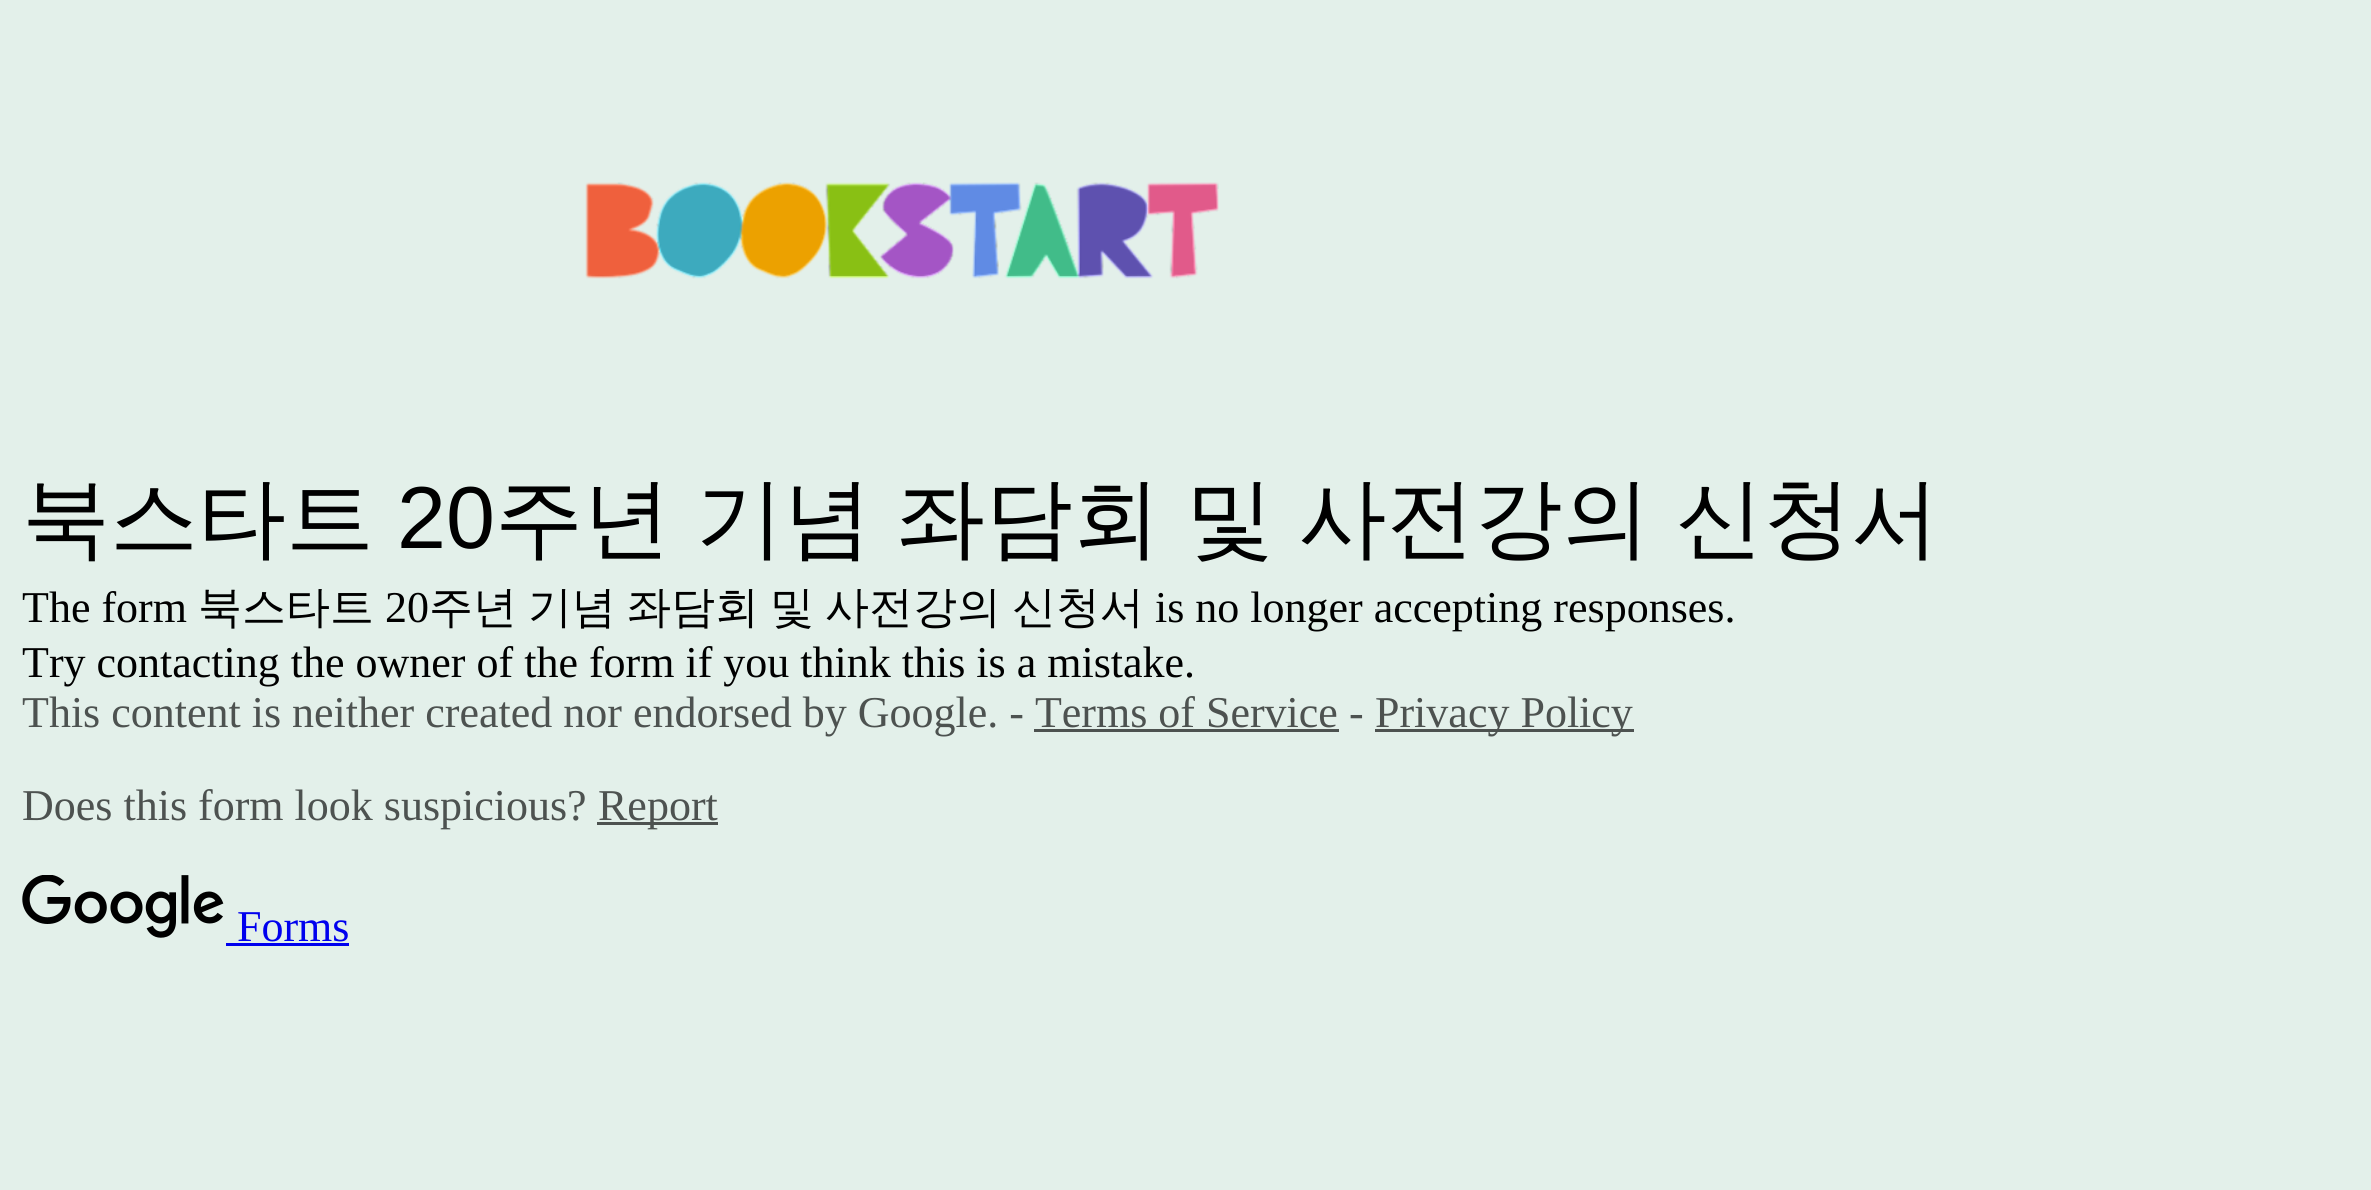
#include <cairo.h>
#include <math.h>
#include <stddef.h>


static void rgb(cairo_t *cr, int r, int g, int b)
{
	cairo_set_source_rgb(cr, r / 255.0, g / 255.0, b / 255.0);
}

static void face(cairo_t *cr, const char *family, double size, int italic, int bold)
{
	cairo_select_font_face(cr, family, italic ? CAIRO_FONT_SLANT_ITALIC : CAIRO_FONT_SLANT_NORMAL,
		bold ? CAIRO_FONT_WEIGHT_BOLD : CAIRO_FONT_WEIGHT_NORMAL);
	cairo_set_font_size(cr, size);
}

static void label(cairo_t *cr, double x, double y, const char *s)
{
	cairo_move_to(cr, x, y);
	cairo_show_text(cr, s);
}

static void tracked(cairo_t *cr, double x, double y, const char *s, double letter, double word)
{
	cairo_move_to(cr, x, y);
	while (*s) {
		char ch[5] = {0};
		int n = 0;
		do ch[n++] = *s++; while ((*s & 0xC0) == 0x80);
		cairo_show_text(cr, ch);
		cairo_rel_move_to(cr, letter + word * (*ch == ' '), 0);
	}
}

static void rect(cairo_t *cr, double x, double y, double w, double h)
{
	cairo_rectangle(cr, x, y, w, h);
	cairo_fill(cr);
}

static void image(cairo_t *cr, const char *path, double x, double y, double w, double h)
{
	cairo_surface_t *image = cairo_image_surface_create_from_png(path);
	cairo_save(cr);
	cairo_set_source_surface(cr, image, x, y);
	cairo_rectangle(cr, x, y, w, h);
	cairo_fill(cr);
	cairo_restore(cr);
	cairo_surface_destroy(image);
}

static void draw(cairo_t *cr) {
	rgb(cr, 227, 240, 234);
	cairo_paint(cr);
	image(cr, "image0.png", 585, 182, 634, 97);
	face(cr, "WenQuanYi Zen Hei Medium", 88, 0, 0);
	rgb(cr, 0, 0, 0);
	label(cr, 22, 548, "북스타트");
	face(cr, "Liberation Sans", 88, 0, 0);
	label(cr, 397, 548, "20");
	face(cr, "WenQuanYi Zen Hei Medium", 88, 0, 0);
	tracked(cr, 495, 548, "주년 기념 좌담회 및 사전강의 신청서", 0, -1.5);
	face(cr, "Liberation Serif", 44, 0, 0);
	label(cr, 22, 622, "The form");
	face(cr, "WenQuanYi Zen Hei Medium", 44, 0, 0);
	label(cr, 198, 622, "북스타트");
	face(cr, "Liberation Serif", 44, 0, 0);
	label(cr, 385, 622, "20");
	face(cr, "WenQuanYi Zen Hei Medium", 44, 0, 0);
	label(cr, 429, 622, "주년");
	label(cr, 528, 622, "기념");
	label(cr, 627, 622, "좌담회");
	label(cr, 770, 622, "및");
	label(cr, 825, 622, "사전강의");
	label(cr, 1012, 622, "신청서");
	face(cr, "Liberation Serif", 44, 0, 0);
	label(cr, 1155, 622, "is no longer accepting responses.");
	label(cr, 22, 677, "Try contacting the owner of the form if you think this is a mistake.");
	rgb(cr, 77, 82, 80);
	label(cr, 22, 727, "This content is neither created nor endorsed by Google. - Terms of Service -");
	rect(cr, 1375, 729, 259, 3);
	label(cr, 1375, 727, "Privacy Policy");
	rect(cr, 1034, 729, 305, 3);
	label(cr, 22, 820, "Does this form look suspicious?");
	rect(cr, 597, 822, 121, 3);
	label(cr, 598, 820, "Report");
	image(cr, "image1.png", 22, 875, 202, 63);
	rgb(cr, 0, 0, 238);
	label(cr, 237, 941, "Forms");
	rect(cr, 226, 943, 123, 3);
}

int main(void) {
	cairo_surface_t *surface = cairo_image_surface_create(CAIRO_FORMAT_RGB24, 2371, 1190);
	cairo_t *cr = cairo_create(surface);
	cairo_font_options_t *options = cairo_font_options_create();
	cairo_font_options_set_hint_metrics(options, CAIRO_HINT_METRICS_OFF);
	cairo_font_options_set_hint_style(options, CAIRO_HINT_STYLE_NONE);
	cairo_set_font_options(cr, options);
	cairo_set_miter_limit(cr, 4);
	draw(cr);
	cairo_surface_write_to_png(surface, "render.png");
	cairo_font_options_destroy(options);
	cairo_destroy(cr);
	cairo_surface_destroy(surface);
	return 0;
}
